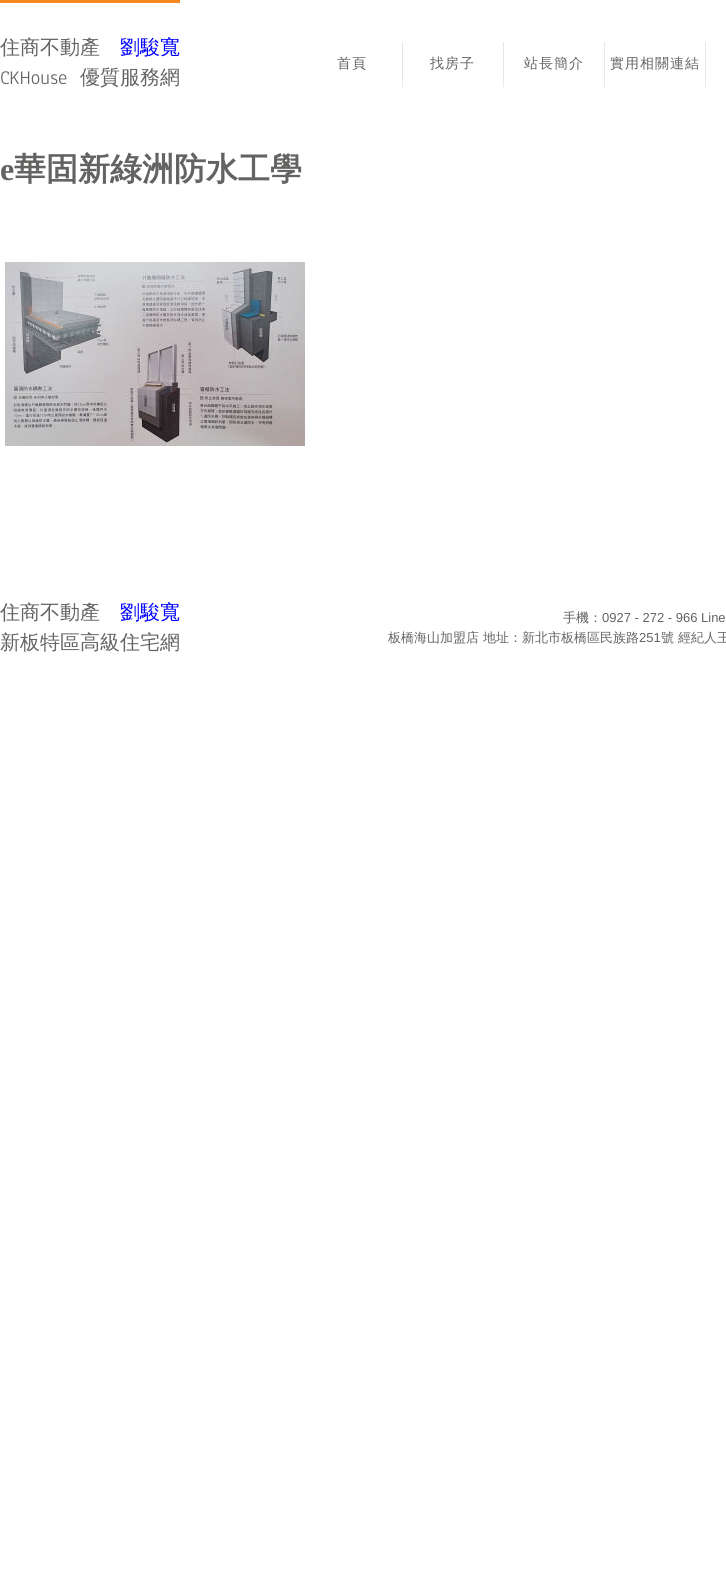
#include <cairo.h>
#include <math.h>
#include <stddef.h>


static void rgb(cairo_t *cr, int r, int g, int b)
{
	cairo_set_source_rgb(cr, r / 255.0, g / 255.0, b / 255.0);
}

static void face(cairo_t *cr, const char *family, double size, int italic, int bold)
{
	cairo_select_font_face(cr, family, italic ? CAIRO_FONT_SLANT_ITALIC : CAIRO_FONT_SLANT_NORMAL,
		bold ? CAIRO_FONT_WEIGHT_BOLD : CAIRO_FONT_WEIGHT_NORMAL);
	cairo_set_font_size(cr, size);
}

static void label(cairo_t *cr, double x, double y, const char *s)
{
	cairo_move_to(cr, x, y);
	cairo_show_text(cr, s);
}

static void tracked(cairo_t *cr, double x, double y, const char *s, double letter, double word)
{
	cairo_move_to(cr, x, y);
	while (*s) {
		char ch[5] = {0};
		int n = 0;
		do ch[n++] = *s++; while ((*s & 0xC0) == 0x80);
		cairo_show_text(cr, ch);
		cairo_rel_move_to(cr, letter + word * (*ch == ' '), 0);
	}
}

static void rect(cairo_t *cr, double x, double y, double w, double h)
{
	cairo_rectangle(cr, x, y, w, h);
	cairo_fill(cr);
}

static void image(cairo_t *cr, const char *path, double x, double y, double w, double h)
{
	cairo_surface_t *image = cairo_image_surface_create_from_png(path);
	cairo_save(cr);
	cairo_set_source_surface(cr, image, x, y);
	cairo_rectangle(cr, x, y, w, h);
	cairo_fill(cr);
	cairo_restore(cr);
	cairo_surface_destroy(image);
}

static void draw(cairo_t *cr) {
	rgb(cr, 255, 255, 255);
	cairo_paint(cr);
	rgb(cr, 246, 137, 31);
	rect(cr, 0, 0, 180, 3);
	face(cr, "WenQuanYi Zen Hei Medium", 20, 0, 0);
	rgb(cr, 99, 100, 97);
	label(cr, 0, 54, "住商不動產");
	rgb(cr, 0, 0, 255);
	label(cr, 120, 54, "劉駿寬");
	face(cr, "Anaheim", 20, 0, 0);
	rgb(cr, 99, 100, 97);
	label(cr, 0, 84, "CKHouse");
	face(cr, "WenQuanYi Zen Hei Medium", 20, 0, 0);
	label(cr, 80, 84, "優質服務網");
	face(cr, "WenQuanYi Zen Hei Medium", 14, 0, 0);
	tracked(cr, 337, 68, "首頁", 1, 0);
	rgb(cr, 231, 231, 231);
	rect(cr, 402, 42, 1, 45);
	rgb(cr, 99, 100, 97);
	tracked(cr, 430, 68, "找房子", 1, 0);
	rgb(cr, 231, 231, 231);
	rect(cr, 503, 42, 1, 45);
	rgb(cr, 99, 100, 97);
	tracked(cr, 524, 68, "站長簡介", 1, 0);
	rgb(cr, 231, 231, 231);
	rect(cr, 604, 42, 1, 45);
	rgb(cr, 99, 100, 97);
	tracked(cr, 610, 68, "實用相關連結", 1, 0);
	rgb(cr, 231, 231, 231);
	rect(cr, 705, 42, 1, 45);
	face(cr, "Liberation Serif", 32, 0, 1);
	rgb(cr, 99, 100, 97);
	label(cr, 0, 180, "e");
	face(cr, "WenQuanYi Zen Hei", 32, 0, 1);
	label(cr, 14, 180, "華固新綠洲防水工學");
	image(cr, "image0.png", 5, 262, 300, 184);
	face(cr, "WenQuanYi Zen Hei Medium", 20, 0, 0);
	label(cr, 0, 619, "住商不動產");
	rgb(cr, 0, 0, 255);
	label(cr, 120, 619, "劉駿寬");
	rgb(cr, 99, 100, 97);
	label(cr, 0, 649, "新板特區高級住宅網");
	face(cr, "WenQuanYi Zen Hei Medium", 13, 0, 0);
	label(cr, 563, 622, "手機：");
	face(cr, "Liberation Sans", 13, 0, 0);
	label(cr, 602, 622, "0927 - 272 - 966 Line");
	face(cr, "WenQuanYi Zen Hei Medium", 13, 0, 0);
	label(cr, 388, 642, "板橋海山加盟店 地址");
	label(cr, 509, 642, "：新北市板橋區民族路");
	face(cr, "Liberation Sans", 13, 0, 0);
	label(cr, 639, 642, "251");
	face(cr, "WenQuanYi Zen Hei Medium", 13, 0, 0);
	label(cr, 661, 642, "號 經紀人王");
}

int main(void) {
	cairo_surface_t *surface = cairo_image_surface_create(CAIRO_FORMAT_RGB24, 726, 1596);
	cairo_t *cr = cairo_create(surface);
	cairo_font_options_t *options = cairo_font_options_create();
	cairo_font_options_set_hint_metrics(options, CAIRO_HINT_METRICS_OFF);
	cairo_font_options_set_hint_style(options, CAIRO_HINT_STYLE_NONE);
	cairo_set_font_options(cr, options);
	cairo_set_miter_limit(cr, 4);
	draw(cr);
	cairo_surface_write_to_png(surface, "render.png");
	cairo_font_options_destroy(options);
	cairo_destroy(cr);
	cairo_surface_destroy(surface);
	return 0;
}
